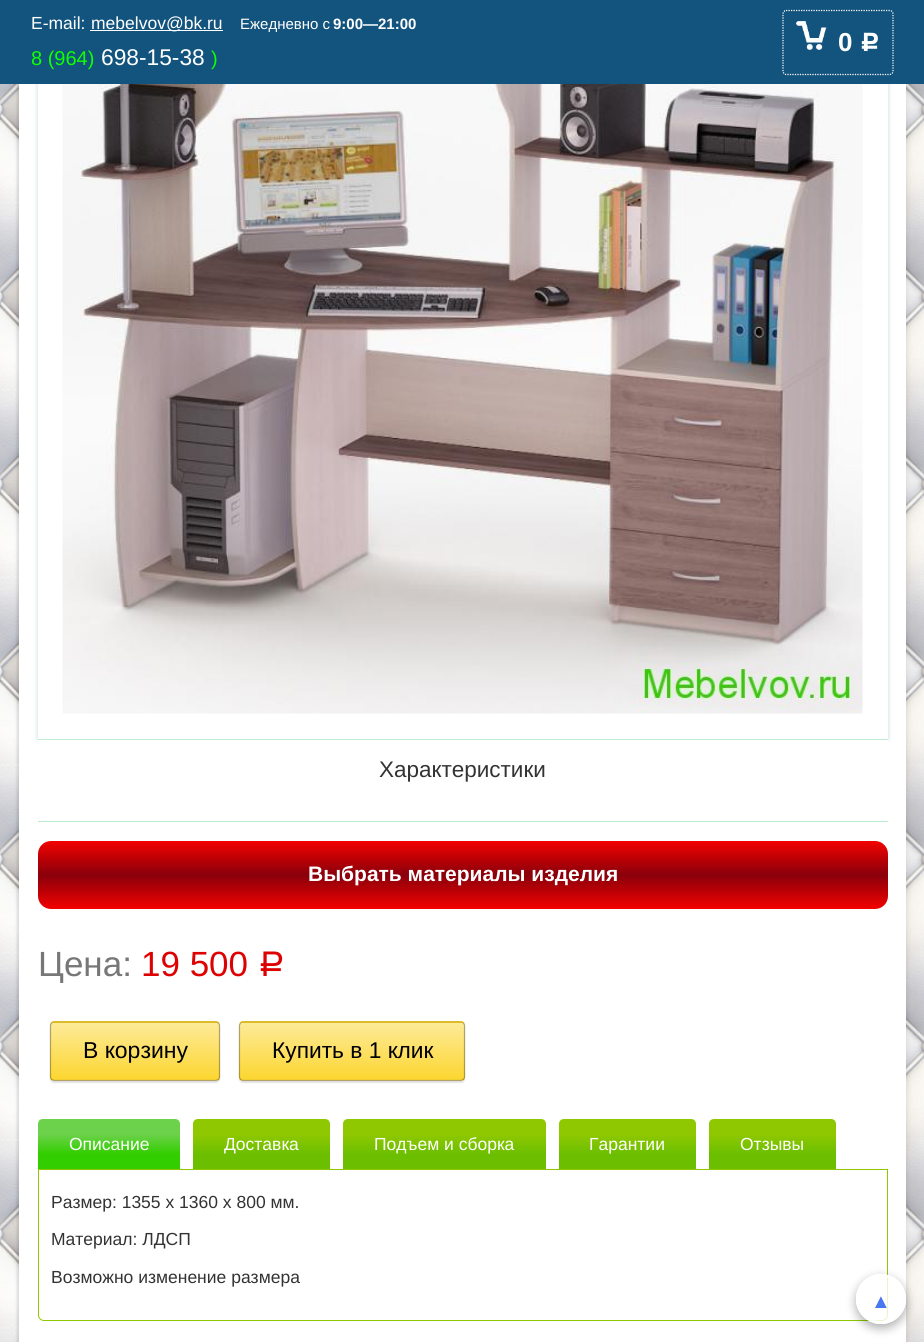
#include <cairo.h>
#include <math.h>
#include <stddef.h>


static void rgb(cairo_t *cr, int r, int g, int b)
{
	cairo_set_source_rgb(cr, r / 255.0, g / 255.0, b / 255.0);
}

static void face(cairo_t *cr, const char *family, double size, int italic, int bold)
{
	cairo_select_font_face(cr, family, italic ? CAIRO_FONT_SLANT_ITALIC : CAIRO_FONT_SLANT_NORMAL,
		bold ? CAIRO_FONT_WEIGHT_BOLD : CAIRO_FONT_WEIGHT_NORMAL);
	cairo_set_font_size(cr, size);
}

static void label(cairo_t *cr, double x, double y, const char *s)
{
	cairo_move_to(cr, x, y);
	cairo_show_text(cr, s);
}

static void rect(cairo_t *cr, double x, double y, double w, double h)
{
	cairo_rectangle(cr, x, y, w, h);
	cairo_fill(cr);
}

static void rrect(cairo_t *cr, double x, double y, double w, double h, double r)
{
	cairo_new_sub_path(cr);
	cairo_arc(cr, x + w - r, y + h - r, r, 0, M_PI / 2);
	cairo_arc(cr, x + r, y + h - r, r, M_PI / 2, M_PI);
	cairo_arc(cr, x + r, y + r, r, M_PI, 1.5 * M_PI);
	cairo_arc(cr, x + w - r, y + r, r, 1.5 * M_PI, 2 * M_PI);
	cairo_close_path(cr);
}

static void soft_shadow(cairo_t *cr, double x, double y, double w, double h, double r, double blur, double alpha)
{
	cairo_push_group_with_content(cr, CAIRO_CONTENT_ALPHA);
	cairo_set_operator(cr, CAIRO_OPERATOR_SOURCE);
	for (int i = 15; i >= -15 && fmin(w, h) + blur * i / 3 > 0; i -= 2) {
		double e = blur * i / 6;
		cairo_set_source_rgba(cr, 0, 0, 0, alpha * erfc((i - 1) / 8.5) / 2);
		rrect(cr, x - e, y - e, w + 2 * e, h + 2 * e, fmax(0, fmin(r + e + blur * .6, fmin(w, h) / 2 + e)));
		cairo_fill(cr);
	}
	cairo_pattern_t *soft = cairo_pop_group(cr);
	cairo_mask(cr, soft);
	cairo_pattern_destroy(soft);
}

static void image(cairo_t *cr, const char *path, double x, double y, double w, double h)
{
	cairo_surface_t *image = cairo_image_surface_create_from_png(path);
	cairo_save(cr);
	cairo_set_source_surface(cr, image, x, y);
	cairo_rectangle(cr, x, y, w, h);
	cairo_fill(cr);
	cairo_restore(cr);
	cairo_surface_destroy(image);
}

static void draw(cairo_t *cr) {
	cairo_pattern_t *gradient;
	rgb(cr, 255, 255, 255);
	cairo_paint(cr);
	image(cr, "image1.png", 0, 84, 924, 1258);
	rgb(cr, 0, 0, 0);
	soft_shadow(cr, 19, -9, 887, 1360, 0, 3, 0.13);
	rgb(cr, 255, 255, 255);
	rect(cr, 19, 84, 887, 1258);
	cairo_save(cr);
	cairo_rectangle(cr, 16, 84, 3, 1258);
	cairo_clip(cr);
	rgb(cr, 0, 0, 0);
	soft_shadow(cr, 25, -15, 868, 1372, 0, 5, 0.7);
	cairo_restore(cr);
	cairo_save(cr);
	cairo_set_fill_rule(cr, CAIRO_FILL_RULE_EVEN_ODD);
	cairo_new_path(cr);
	cairo_move_to(cr, 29, 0);
	cairo_line_to(cr, 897, 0);
	cairo_line_to(cr, 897, 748);
	cairo_line_to(cr, 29, 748);
	cairo_close_path(cr);
	cairo_move_to(cr, 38, -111);
	cairo_line_to(cr, 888, -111);
	cairo_line_to(cr, 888, 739);
	cairo_line_to(cr, 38, 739);
	cairo_close_path(cr);
	cairo_clip(cr);
	rgb(cr, 123, 152, 165);
	soft_shadow(cr, 38, -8, 850, 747, 0, 2.5, 0.4);
	cairo_restore(cr);
	rgb(cr, 19, 84, 126);
	rect(cr, 0, 0, 924, 84);
	face(cr, "Liberation Sans", 17.5, 0, 0);
	rgb(cr, 255, 255, 255);
	label(cr, 31, 29, "E-mail:");
	rect(cr, 90, 30, 133, 1);
	label(cr, 91, 29, "mebelvov@bk.ru");
	face(cr, "Liberation Sans", 15, 0, 0);
	label(cr, 240, 29, "Ежедневно c");
	face(cr, "Liberation Sans", 15, 0, 1);
	label(cr, 333, 29, "9:00—21:00");
	face(cr, "Liberation Sans", 20, 0, 0);
	rgb(cr, 16, 255, 0);
	label(cr, 31, 65, "8 (964)");
	face(cr, "Liberation Sans", 22.75, 0, 0);
	rgb(cr, 255, 255, 255);
	label(cr, 101, 65, "698-15-38");
	face(cr, "Liberation Sans", 20, 0, 0);
	rgb(cr, 16, 255, 0);
	label(cr, 211, 65, ")");
	cairo_new_path(cr);
	cairo_move_to(cr, 786, 10.5);
	cairo_line_to(cr, 890, 10.5);
	cairo_curve_to(cr, 891.5, 10.5, 893, 12, 893, 14);
	cairo_line_to(cr, 893, 71);
	cairo_curve_to(cr, 893, 73, 891.5, 74.5, 890, 74.5);
	cairo_line_to(cr, 786, 74.5);
	cairo_curve_to(cr, 784.5, 74.5, 783, 73, 783, 71);
	cairo_line_to(cr, 783, 14);
	cairo_curve_to(cr, 783, 12, 784.5, 10.5, 786, 10.5);
	cairo_close_path(cr);
	rgb(cr, 255, 255, 255);
	cairo_set_line_width(cr, 1.2);
	cairo_set_dash(cr, (double[]){1.25, 1.25}, 2, 0);
	cairo_stroke(cr);
	image(cr, "image0.png", 796, 21, 31, 29);
	face(cr, "Liberation Sans", 26, 0, 1);
	label(cr, 838, 51, "0");
	face(cr, "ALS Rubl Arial", 26, 0, 1);
	label(cr, 860, 51, "Р");
	image(cr, "image2.png", 62, 84, 801, 630);
	rect(cr, 38, 740, 850, 3);
	rgb(cr, 189, 237, 208);
	rect(cr, 38, 739, 850, 1);
	face(cr, "Liberation Sans", 22.5, 0, 0);
	rgb(cr, 51, 51, 51);
	label(cr, 379, 777, "Характеристики");
	rgb(cr, 189, 237, 208);
	rect(cr, 38, 821, 850, 1);
	gradient = cairo_pattern_create_linear(463, 841, 463, 909);
	cairo_pattern_add_color_stop_rgba(gradient, 0, 0.953, 0.004, 0, 1);
	cairo_pattern_add_color_stop_rgba(gradient, 0.5, 0.537, 0, 0.043, 1);
	cairo_pattern_add_color_stop_rgba(gradient, 1, 0.953, 0.004, 0, 1);
	cairo_set_source(cr, gradient);
	cairo_pattern_destroy(gradient);
	rrect(cr, 38, 841, 850, 68, 13);
	cairo_fill(cr);
	face(cr, "Liberation Sans", 21, 0, 1);
	rgb(cr, 255, 255, 255);
	label(cr, 308, 881, "Выбрать материалы изделия");
	face(cr, "Liberation Sans", 35, 0, 0);
	rgb(cr, 119, 119, 119);
	label(cr, 38, 976, "Цена:");
	rgb(cr, 221, 1, 2);
	label(cr, 141, 976, "19 500");
	face(cr, "ALS Rubl Arial", 35, 0, 0);
	label(cr, 258, 976, "Р");
	rgb(cr, 0, 0, 0);
	soft_shadow(cr, 50, 1023, 170, 60, 4, 0.5, 0.1);
	rgb(cr, 252, 214, 48);
	rrect(cr, 50, 1021, 170, 60, 4);
	cairo_fill(cr);
	gradient = cairo_pattern_create_linear(135, 1023, 135, 1080);
	cairo_pattern_add_color_stop_rgba(gradient, 0, 1, 1, 1, 0.5);
	cairo_pattern_add_color_stop_rgba(gradient, 1, 1, 1, 1, 0);
	cairo_set_source(cr, gradient);
	cairo_pattern_destroy(gradient);
	rect(cr, 50, 1023, 170, 55);
	cairo_save(cr);
	rrect(cr, 50, 1021, 170, 60, 4);
	cairo_clip(cr);
	gradient = cairo_pattern_create_linear(135, 1080, 135, 1138);
	cairo_pattern_add_color_stop_rgba(gradient, 0, 1, 1, 1, 0.5);
	cairo_pattern_add_color_stop_rgba(gradient, 1, 1, 1, 1, 0);
	cairo_set_source(cr, gradient);
	cairo_pattern_destroy(gradient);
	rect(cr, 50, 1080, 170, 1);
	cairo_restore(cr);
	cairo_new_path(cr);
	cairo_move_to(cr, 51.5, 1023);
	cairo_line_to(cr, 53.5, 1022);
	cairo_line_to(cr, 189, 1022);
	cairo_line_to(cr, 216, 1022);
	cairo_line_to(cr, 218.5, 1023);
	cairo_set_source_rgba(cr, 0, 0, 0, 0.2);
	cairo_set_dash(cr, NULL, 0, 0);
	cairo_stroke(cr);
	cairo_new_path(cr);
	cairo_move_to(cr, 218.5, 1023);
	cairo_line_to(cr, 219.5, 1025);
	cairo_line_to(cr, 219.5, 1077.5);
	cairo_line_to(cr, 218.5, 1079.5);
	cairo_line_to(cr, 216, 1080.5);
	cairo_line_to(cr, 54, 1080.5);
	cairo_line_to(cr, 51.5, 1079.5);
	cairo_line_to(cr, 50.5, 1077.5);
	cairo_line_to(cr, 50.5, 1025);
	cairo_line_to(cr, 51.5, 1023);
	cairo_set_source_rgba(cr, 0, 0, 0, 0.3);
	cairo_stroke(cr);
	face(cr, "Liberation Sans", 23, 0, 0);
	rgb(cr, 0, 0, 0);
	label(cr, 83, 1058, "В корзину");
	rgb(cr, 0, 0, 0);
	soft_shadow(cr, 239, 1023, 226, 60, 4, 0.5, 0.1);
	rgb(cr, 252, 214, 48);
	rrect(cr, 239, 1021, 226, 60, 4);
	cairo_fill(cr);
	gradient = cairo_pattern_create_linear(352, 1023, 352, 1080);
	cairo_pattern_add_color_stop_rgba(gradient, 0, 1, 1, 1, 0.5);
	cairo_pattern_add_color_stop_rgba(gradient, 1, 1, 1, 1, 0);
	cairo_set_source(cr, gradient);
	cairo_pattern_destroy(gradient);
	rect(cr, 239, 1023, 226, 55);
	cairo_save(cr);
	rrect(cr, 239, 1021, 226, 60, 4);
	cairo_clip(cr);
	gradient = cairo_pattern_create_linear(352, 1080, 352, 1138);
	cairo_pattern_add_color_stop_rgba(gradient, 0, 1, 1, 1, 0.5);
	cairo_pattern_add_color_stop_rgba(gradient, 1, 1, 1, 1, 0);
	cairo_set_source(cr, gradient);
	cairo_pattern_destroy(gradient);
	rect(cr, 239, 1080, 226, 1);
	cairo_restore(cr);
	cairo_new_path(cr);
	cairo_move_to(cr, 240.5, 1023);
	cairo_line_to(cr, 242.5, 1022);
	cairo_line_to(cr, 461, 1022);
	cairo_line_to(cr, 463.5, 1023);
	cairo_set_source_rgba(cr, 0, 0, 0, 0.2);
	cairo_stroke(cr);
	cairo_new_path(cr);
	cairo_move_to(cr, 463.5, 1023);
	cairo_line_to(cr, 464.5, 1025);
	cairo_line_to(cr, 464.5, 1077.5);
	cairo_line_to(cr, 463.5, 1079.5);
	cairo_line_to(cr, 461, 1080.5);
	cairo_line_to(cr, 242.5, 1080.5);
	cairo_line_to(cr, 240.5, 1079.5);
	cairo_line_to(cr, 239.5, 1077.5);
	cairo_line_to(cr, 239.5, 1025);
	cairo_line_to(cr, 240.5, 1023);
	cairo_set_source_rgba(cr, 0, 0, 0, 0.3);
	cairo_stroke(cr);
	face(cr, "Liberation Sans", 22.75, 0, 0);
	rgb(cr, 0, 0, 0);
	label(cr, 272, 1058, "Купить в 1 клик");
	gradient = cairo_pattern_create_linear(109, 1119, 109, 1169);
	cairo_pattern_add_color_stop_rgba(gradient, 0.3, 0.424, 0.82, 0.294, 1);
	cairo_pattern_add_color_stop_rgba(gradient, 0.7, 0.2, 0.808, 0, 1);
	cairo_set_source(cr, gradient);
	cairo_pattern_destroy(gradient);
	cairo_new_path(cr);
	cairo_move_to(cr, 43, 1119);
	cairo_line_to(cr, 175, 1119);
	cairo_curve_to(cr, 178, 1119, 180, 1121, 180, 1124);
	cairo_line_to(cr, 180, 1169);
	cairo_line_to(cr, 38, 1169);
	cairo_line_to(cr, 38, 1124);
	cairo_curve_to(cr, 38, 1121, 40, 1119, 43, 1119);
	cairo_close_path(cr);
	cairo_fill(cr);
	face(cr, "Liberation Sans", 17.5, 0, 0);
	rgb(cr, 255, 255, 255);
	label(cr, 69, 1150, "Описание");
	gradient = cairo_pattern_create_linear(261, 1119, 261, 1169);
	cairo_pattern_add_color_stop_rgba(gradient, 0.3, 0.561, 0.784, 0, 1);
	cairo_pattern_add_color_stop_rgba(gradient, 0.7, 0.424, 0.749, 0, 1);
	cairo_set_source(cr, gradient);
	cairo_pattern_destroy(gradient);
	cairo_new_path(cr);
	cairo_move_to(cr, 198, 1119);
	cairo_line_to(cr, 325, 1119);
	cairo_curve_to(cr, 328, 1119, 330, 1121, 330, 1124);
	cairo_line_to(cr, 330, 1169);
	cairo_line_to(cr, 193, 1169);
	cairo_line_to(cr, 193, 1124);
	cairo_curve_to(cr, 193, 1121, 195, 1119, 198, 1119);
	cairo_close_path(cr);
	cairo_fill(cr);
	rgb(cr, 255, 255, 255);
	label(cr, 224, 1150, "Доставка");
	gradient = cairo_pattern_create_linear(444, 1119, 444, 1169);
	cairo_pattern_add_color_stop_rgba(gradient, 0.3, 0.561, 0.784, 0, 1);
	cairo_pattern_add_color_stop_rgba(gradient, 0.7, 0.424, 0.749, 0, 1);
	cairo_set_source(cr, gradient);
	cairo_pattern_destroy(gradient);
	cairo_new_path(cr);
	cairo_move_to(cr, 348, 1119);
	cairo_line_to(cr, 541, 1119);
	cairo_curve_to(cr, 544, 1119, 546, 1121, 546, 1124);
	cairo_line_to(cr, 546, 1169);
	cairo_line_to(cr, 343, 1169);
	cairo_line_to(cr, 343, 1124);
	cairo_curve_to(cr, 343, 1121, 345, 1119, 348, 1119);
	cairo_close_path(cr);
	cairo_fill(cr);
	rgb(cr, 255, 255, 255);
	label(cr, 374, 1150, "Подъем и сборка");
	gradient = cairo_pattern_create_linear(628, 1119, 628, 1169);
	cairo_pattern_add_color_stop_rgba(gradient, 0.3, 0.561, 0.784, 0, 1);
	cairo_pattern_add_color_stop_rgba(gradient, 0.7, 0.424, 0.749, 0, 1);
	cairo_set_source(cr, gradient);
	cairo_pattern_destroy(gradient);
	cairo_new_path(cr);
	cairo_move_to(cr, 564, 1119);
	cairo_line_to(cr, 691, 1119);
	cairo_curve_to(cr, 694, 1119, 696, 1121, 696, 1124);
	cairo_line_to(cr, 696, 1169);
	cairo_line_to(cr, 559, 1169);
	cairo_line_to(cr, 559, 1124);
	cairo_curve_to(cr, 559, 1121, 561, 1119, 564, 1119);
	cairo_close_path(cr);
	cairo_fill(cr);
	rgb(cr, 255, 255, 255);
	label(cr, 589, 1150, "Гарантии");
	gradient = cairo_pattern_create_linear(773, 1119, 773, 1169);
	cairo_pattern_add_color_stop_rgba(gradient, 0.3, 0.561, 0.784, 0, 1);
	cairo_pattern_add_color_stop_rgba(gradient, 0.7, 0.424, 0.749, 0, 1);
	cairo_set_source(cr, gradient);
	cairo_pattern_destroy(gradient);
	cairo_new_path(cr);
	cairo_move_to(cr, 714, 1119);
	cairo_line_to(cr, 831, 1119);
	cairo_curve_to(cr, 834, 1119, 836, 1121, 836, 1124);
	cairo_line_to(cr, 836, 1169);
	cairo_line_to(cr, 709, 1169);
	cairo_line_to(cr, 709, 1124);
	cairo_curve_to(cr, 709, 1121, 711, 1119, 714, 1119);
	cairo_close_path(cr);
	cairo_fill(cr);
	rgb(cr, 255, 255, 255);
	label(cr, 740, 1150, "Отзывы");
	cairo_new_path(cr);
	cairo_move_to(cr, 38.5, 1169.5);
	cairo_line_to(cr, 887.5, 1169.5);
	cairo_line_to(cr, 887.5, 1315);
	cairo_curve_to(cr, 887.5, 1318, 885, 1320.5, 882, 1320.5);
	cairo_line_to(cr, 44, 1320.5);
	cairo_curve_to(cr, 41, 1320.5, 38.5, 1318, 38.5, 1315);
	cairo_close_path(cr);
	rgb(cr, 143, 200, 0);
	cairo_set_line_width(cr, 1);
	cairo_stroke(cr);
	rgb(cr, 51, 51, 51);
	label(cr, 51, 1208, "Размер: 1355 х 1360 х 800 мм.");
	label(cr, 51, 1245, "Материал: ЛДСП");
	label(cr, 51, 1283, "Возможно изменение размера");
	cairo_save(cr);
	cairo_set_fill_rule(cr, CAIRO_FILL_RULE_EVEN_ODD);
	cairo_new_path(cr);
	cairo_move_to(cr, 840, 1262);
	cairo_line_to(cr, 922, 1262);
	cairo_line_to(cr, 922, 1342);
	cairo_line_to(cr, 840, 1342);
	cairo_close_path(cr);
	cairo_move_to(cr, 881, 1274);
	cairo_curve_to(cr, 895, 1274, 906, 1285, 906, 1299);
	cairo_curve_to(cr, 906, 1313, 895, 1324, 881, 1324);
	cairo_curve_to(cr, 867, 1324, 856, 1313, 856, 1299);
	cairo_curve_to(cr, 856, 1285, 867, 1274, 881, 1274);
	cairo_close_path(cr);
	cairo_clip(cr);
	rgb(cr, 0, 0, 0);
	soft_shadow(cr, 856, 1278, 50, 50, 25, 5, 0.32);
	cairo_restore(cr);
	cairo_set_source_rgba(cr, 1, 1, 1, 0.8);
	cairo_arc(cr, 881, 1299, 25, 0, 2 * M_PI);
	cairo_fill(cr);
	cairo_arc(cr, 881, 1299, 23.5, 0, 2 * M_PI);
	cairo_set_line_width(cr, 3);
	cairo_stroke(cr);
	face(cr, "Liberation Sans", 20, 0, 0);
	rgb(cr, 73, 118, 241);
	label(cr, 871, 1308, "▲");
}

int main(void) {
	cairo_surface_t *surface = cairo_image_surface_create(CAIRO_FORMAT_RGB24, 924, 1342);
	cairo_t *cr = cairo_create(surface);
	cairo_font_options_t *options = cairo_font_options_create();
	cairo_font_options_set_hint_metrics(options, CAIRO_HINT_METRICS_OFF);
	cairo_font_options_set_hint_style(options, CAIRO_HINT_STYLE_NONE);
	cairo_set_font_options(cr, options);
	cairo_set_miter_limit(cr, 4);
	draw(cr);
	cairo_surface_write_to_png(surface, "render.png");
	cairo_font_options_destroy(options);
	cairo_destroy(cr);
	cairo_surface_destroy(surface);
	return 0;
}
